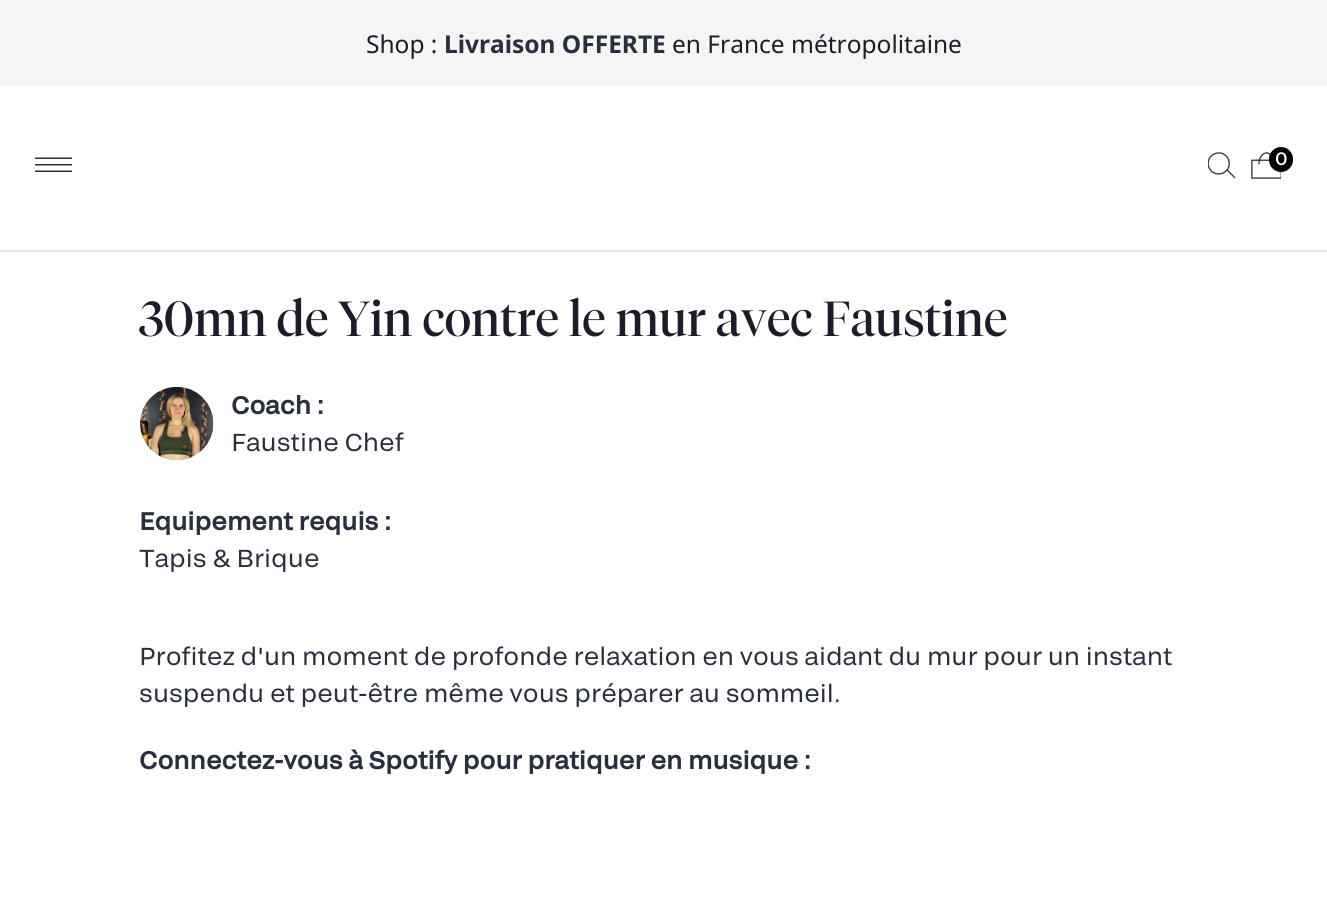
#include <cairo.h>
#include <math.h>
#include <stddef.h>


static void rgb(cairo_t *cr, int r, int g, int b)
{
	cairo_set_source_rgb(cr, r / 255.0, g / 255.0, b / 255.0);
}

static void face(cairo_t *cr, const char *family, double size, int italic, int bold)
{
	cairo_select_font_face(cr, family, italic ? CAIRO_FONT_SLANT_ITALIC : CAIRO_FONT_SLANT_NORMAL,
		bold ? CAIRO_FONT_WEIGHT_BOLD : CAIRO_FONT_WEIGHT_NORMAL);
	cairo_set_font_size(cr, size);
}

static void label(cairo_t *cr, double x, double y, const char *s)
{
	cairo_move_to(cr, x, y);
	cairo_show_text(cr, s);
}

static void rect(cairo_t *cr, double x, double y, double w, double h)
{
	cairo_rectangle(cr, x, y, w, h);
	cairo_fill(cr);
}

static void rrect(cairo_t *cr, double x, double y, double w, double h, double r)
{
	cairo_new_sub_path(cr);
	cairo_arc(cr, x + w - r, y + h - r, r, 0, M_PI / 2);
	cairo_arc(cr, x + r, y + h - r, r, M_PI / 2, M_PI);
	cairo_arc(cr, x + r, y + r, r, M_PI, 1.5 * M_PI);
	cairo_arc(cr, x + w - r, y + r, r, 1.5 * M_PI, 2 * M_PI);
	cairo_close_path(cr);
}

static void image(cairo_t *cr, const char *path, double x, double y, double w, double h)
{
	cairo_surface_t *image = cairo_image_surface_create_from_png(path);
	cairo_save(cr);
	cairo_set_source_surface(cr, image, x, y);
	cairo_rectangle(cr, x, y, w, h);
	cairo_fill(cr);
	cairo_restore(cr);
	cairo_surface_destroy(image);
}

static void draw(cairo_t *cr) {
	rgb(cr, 255, 255, 255);
	cairo_paint(cr);
	rgb(cr, 245, 245, 245);
	rect(cr, 0, 0, 1327, 86);
	face(cr, "Noto Sans", 24.5, 0, 0);
	rgb(cr, 27, 30, 40);
	label(cr, 366, 53, "Shop :");
	face(cr, "Noto Sans", 24.5, 0, 1);
	rgb(cr, 41, 47, 61);
	label(cr, 444, 53, "Livraison OFFERTE");
	face(cr, "Noto Sans", 24.5, 0, 0);
	rgb(cr, 27, 30, 40);
	label(cr, 672, 53, "en France métropolitaine");
	rgb(cr, 224, 227, 235);
	rect(cr, 0, 250, 1327, 2);
	rgb(cr, 41, 47, 61);
	cairo_set_fill_rule(cr, CAIRO_FILL_RULE_EVEN_ODD);
	cairo_new_path(cr);
	cairo_move_to(cr, 72, 159);
	cairo_line_to(cr, 35, 159);
	cairo_line_to(cr, 35, 157.5);
	cairo_line_to(cr, 72, 157.5);
	cairo_close_path(cr);
	cairo_move_to(cr, 72, 165.5);
	cairo_line_to(cr, 35, 165.5);
	cairo_line_to(cr, 35, 164);
	cairo_line_to(cr, 72, 164);
	cairo_close_path(cr);
	cairo_move_to(cr, 72, 172);
	cairo_line_to(cr, 35, 172);
	cairo_line_to(cr, 35, 170.5);
	cairo_line_to(cr, 72, 170.5);
	cairo_close_path(cr);
	cairo_fill(cr);
	image(cr, "image0.png", 1208, 152, 28, 27);
	image(cr, "image1.png", 1251, 152, 30, 27);
	rgb(cr, 0, 0, 0);
	rrect(cr, 1269, 147, 24, 25, 12);
	cairo_fill(cr);
	face(cr, "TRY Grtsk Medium", 18, 0, 0);
	rgb(cr, 255, 255, 255);
	label(cr, 1275, 165, "0");
	face(cr, "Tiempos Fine", 49, 0, 0);
	rgb(cr, 27, 30, 40);
	label(cr, 139, 336, "30mn de Yin contre le mur avec Faustine");
	image(cr, "image2.png", 140, 386, 74, 75);
	face(cr, "TRY Grtsk", 24.5, 0, 1);
	rgb(cr, 41, 47, 61);
	label(cr, 231, 414, "Coach :");
	face(cr, "TRY Grtsk", 24.5, 0, 0);
	label(cr, 231, 451, "Faustine Chef");
	face(cr, "TRY Grtsk", 24.5, 0, 1);
	label(cr, 139, 530, "Equipement requis :");
	face(cr, "TRY Grtsk", 24.5, 0, 0);
	label(cr, 139, 567, "Tapis & Brique");
	label(cr, 139, 665, "Profitez d'un moment de profonde relaxation en vous aidant du mur pour un instant");
	label(cr, 139, 702, "suspendu et peut-être même vous préparer au sommeil.");
	face(cr, "TRY Grtsk", 24.5, 0, 1);
	label(cr, 139, 769, "Connectez-vous à Spotify pour pratiquer en musique :");
}

int main(void) {
	cairo_surface_t *surface = cairo_image_surface_create(CAIRO_FORMAT_RGB24, 1327, 908);
	cairo_t *cr = cairo_create(surface);
	cairo_font_options_t *options = cairo_font_options_create();
	cairo_font_options_set_hint_metrics(options, CAIRO_HINT_METRICS_OFF);
	cairo_font_options_set_hint_style(options, CAIRO_HINT_STYLE_NONE);
	cairo_set_font_options(cr, options);
	cairo_set_miter_limit(cr, 4);
	draw(cr);
	cairo_surface_write_to_png(surface, "render.png");
	cairo_font_options_destroy(options);
	cairo_destroy(cr);
	cairo_surface_destroy(surface);
	return 0;
}
